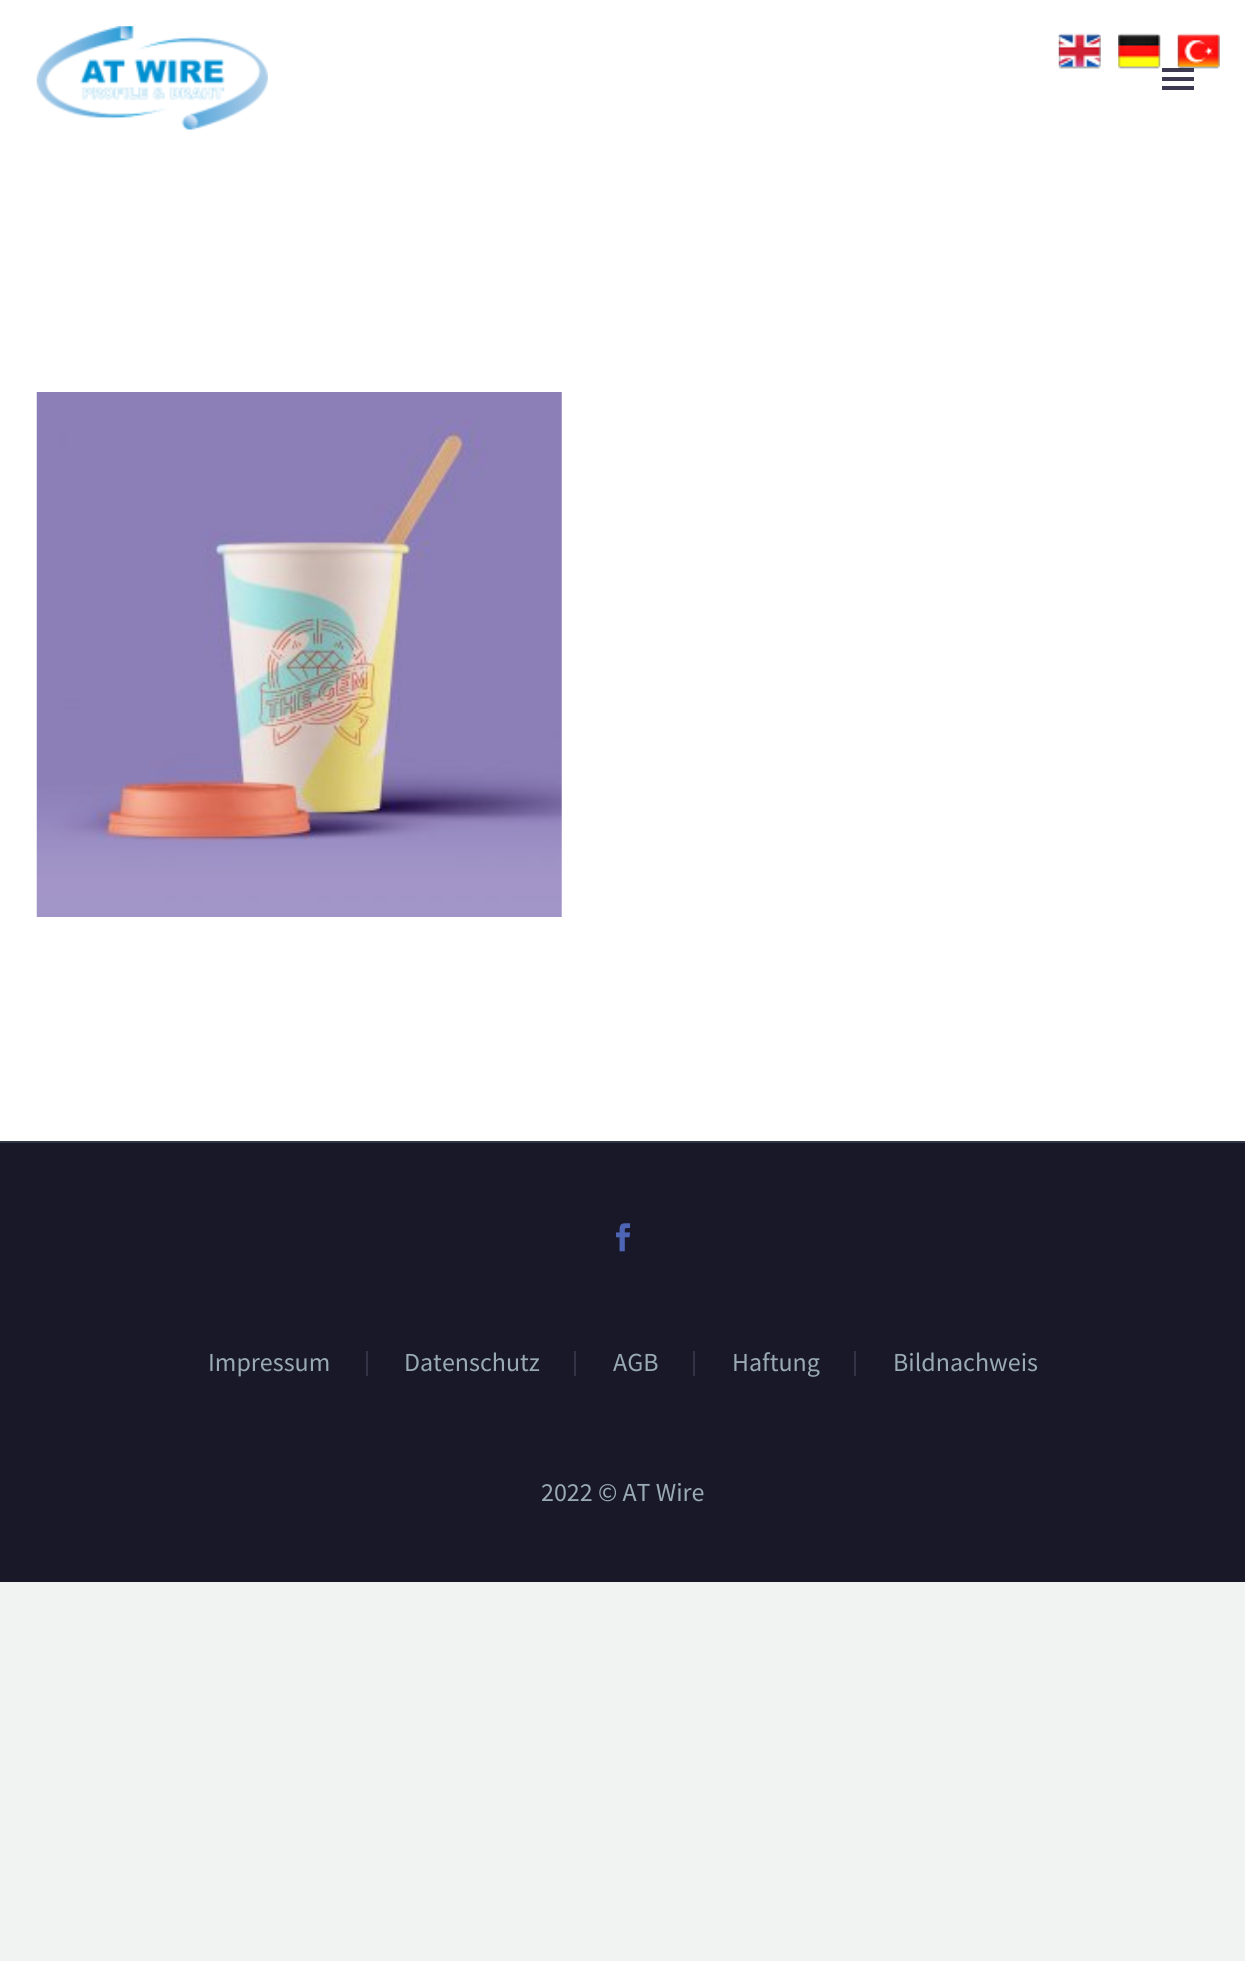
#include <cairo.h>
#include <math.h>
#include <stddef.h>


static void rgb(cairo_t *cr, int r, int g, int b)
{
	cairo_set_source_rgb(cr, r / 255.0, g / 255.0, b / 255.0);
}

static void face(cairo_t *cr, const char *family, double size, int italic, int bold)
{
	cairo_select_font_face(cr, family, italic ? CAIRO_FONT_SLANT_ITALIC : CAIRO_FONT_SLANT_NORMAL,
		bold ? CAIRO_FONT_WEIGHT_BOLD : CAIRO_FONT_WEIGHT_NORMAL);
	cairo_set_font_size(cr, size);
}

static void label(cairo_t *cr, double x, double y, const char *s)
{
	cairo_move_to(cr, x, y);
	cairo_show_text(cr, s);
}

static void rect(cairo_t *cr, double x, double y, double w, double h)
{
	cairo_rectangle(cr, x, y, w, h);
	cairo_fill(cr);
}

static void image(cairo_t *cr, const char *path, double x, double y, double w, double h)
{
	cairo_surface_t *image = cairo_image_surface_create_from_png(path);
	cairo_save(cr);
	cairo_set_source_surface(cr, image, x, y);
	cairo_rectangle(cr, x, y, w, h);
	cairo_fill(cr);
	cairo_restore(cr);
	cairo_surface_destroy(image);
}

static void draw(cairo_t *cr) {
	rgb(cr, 240, 243, 242);
	cairo_paint(cr);
	rgb(cr, 255, 255, 255);
	rect(cr, 0, 0, 1245, 1141);
	image(cr, "image0.png", 1058, 33, 43, 36);
	image(cr, "image1.png", 1118, 33, 43, 36);
	rgb(cr, 60, 57, 80);
	rect(cr, 1162, 68, 32, 4);
	image(cr, "image2.png", 1177, 33, 43, 36);
	image(cr, "image3.png", 36, 26, 232, 104);
	rect(cr, 1162, 77, 32, 4);
	rect(cr, 1162, 86, 32, 4);
	image(cr, "image4.png", 36, 392, 526, 525);
	rgb(cr, 24, 24, 40);
	rect(cr, 0, 1143, 1245, 439);
	rgb(cr, 49, 54, 70);
	rect(cr, 0, 1141, 1245, 2);
	image(cr, "image5.png", 616, 1223, 15, 29);
	face(cr, "Source Sans Pro", 26, 0, 0);
	rgb(cr, 153, 169, 181);
	label(cr, 208, 1371, "Impressum");
	rgb(cr, 51, 49, 70);
	rect(cr, 366, 1351, 2, 25);
	rgb(cr, 153, 169, 181);
	label(cr, 404, 1371, "Datenschutz");
	rgb(cr, 51, 49, 70);
	rect(cr, 574, 1351, 2, 25);
	rgb(cr, 153, 169, 181);
	label(cr, 613, 1371, "AGB");
	rgb(cr, 51, 49, 70);
	rect(cr, 693, 1351, 2, 25);
	rgb(cr, 153, 169, 181);
	label(cr, 732, 1371, "Haftung");
	rgb(cr, 51, 49, 70);
	rect(cr, 854, 1351, 2, 25);
	rgb(cr, 153, 169, 181);
	label(cr, 893, 1371, "Bildnachweis");
	label(cr, 541, 1501, "2022 © AT Wire");
}

int main(void) {
	cairo_surface_t *surface = cairo_image_surface_create(CAIRO_FORMAT_RGB24, 1245, 1961);
	cairo_t *cr = cairo_create(surface);
	cairo_font_options_t *options = cairo_font_options_create();
	cairo_font_options_set_hint_metrics(options, CAIRO_HINT_METRICS_OFF);
	cairo_font_options_set_hint_style(options, CAIRO_HINT_STYLE_NONE);
	cairo_set_font_options(cr, options);
	cairo_set_miter_limit(cr, 4);
	draw(cr);
	cairo_surface_write_to_png(surface, "render.png");
	cairo_font_options_destroy(options);
	cairo_destroy(cr);
	cairo_surface_destroy(surface);
	return 0;
}
